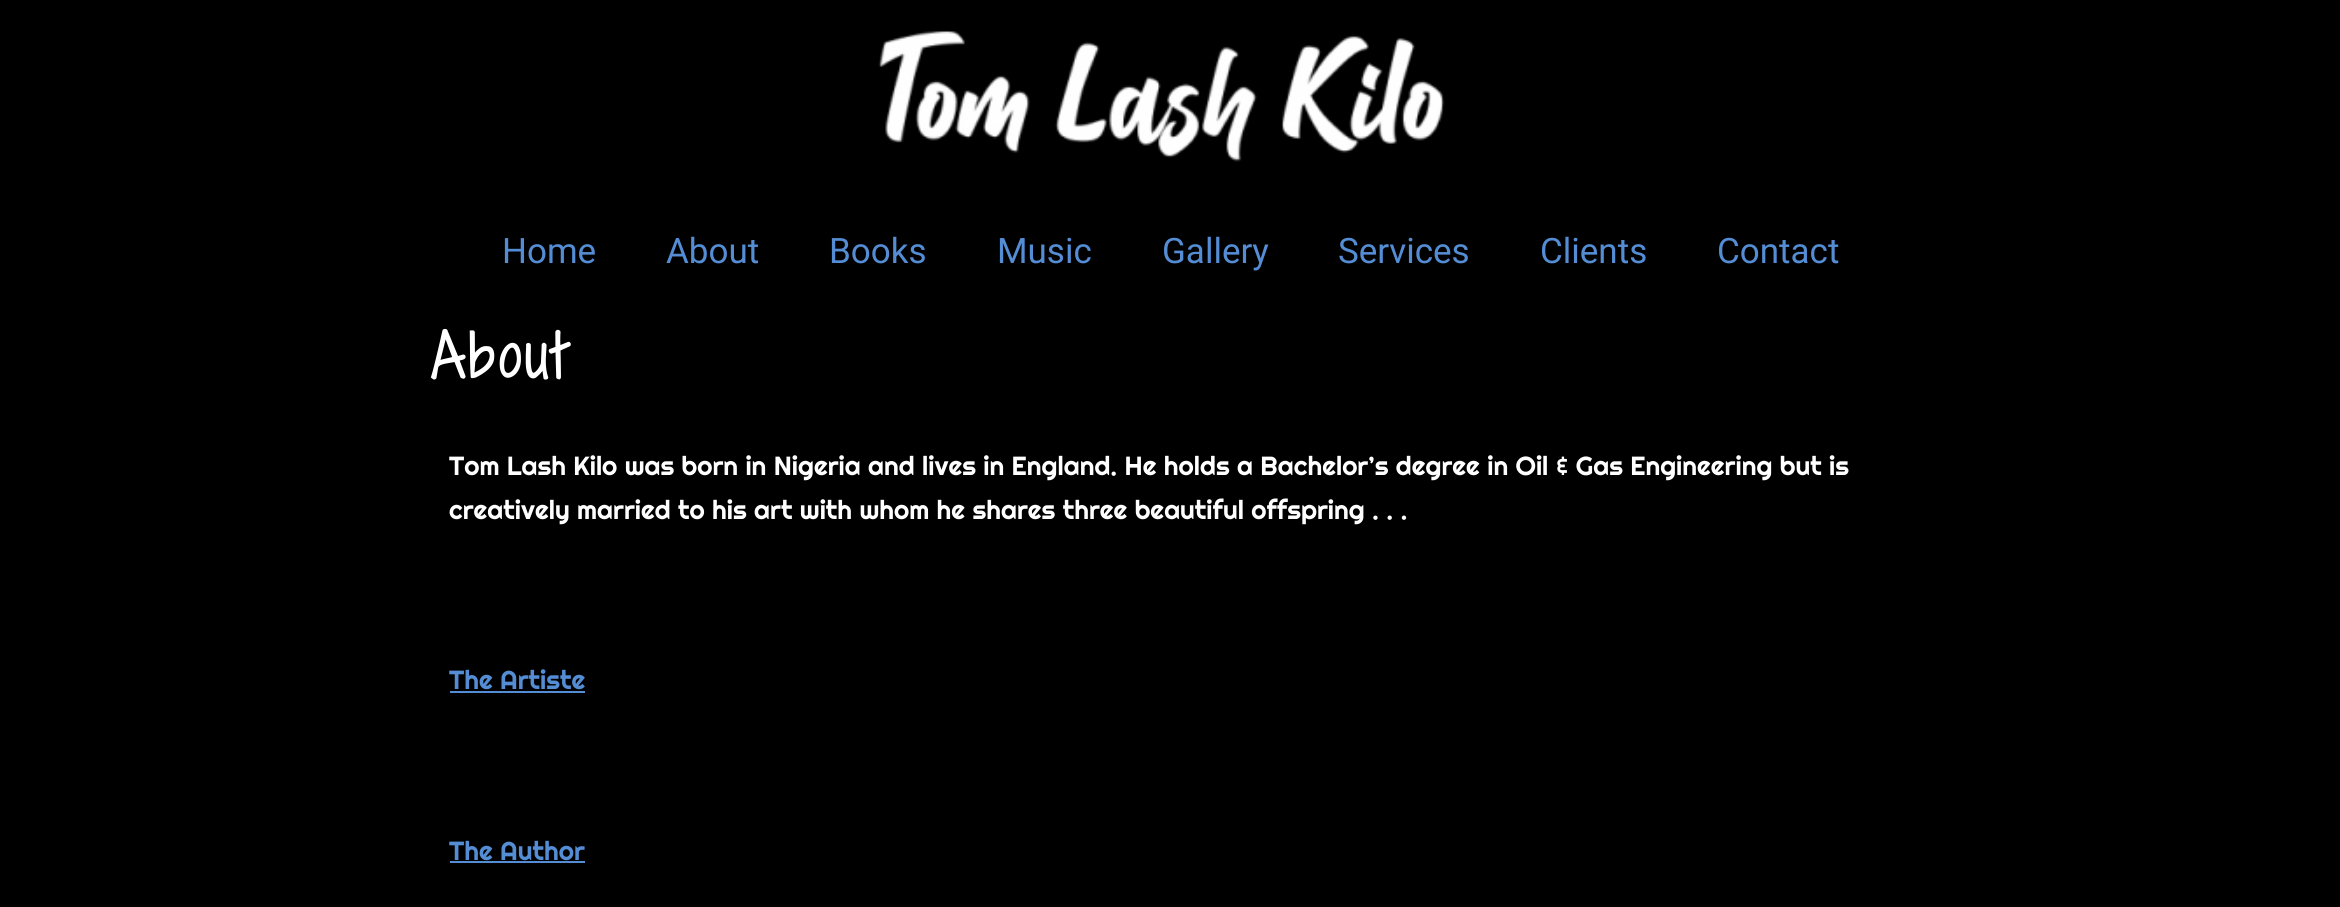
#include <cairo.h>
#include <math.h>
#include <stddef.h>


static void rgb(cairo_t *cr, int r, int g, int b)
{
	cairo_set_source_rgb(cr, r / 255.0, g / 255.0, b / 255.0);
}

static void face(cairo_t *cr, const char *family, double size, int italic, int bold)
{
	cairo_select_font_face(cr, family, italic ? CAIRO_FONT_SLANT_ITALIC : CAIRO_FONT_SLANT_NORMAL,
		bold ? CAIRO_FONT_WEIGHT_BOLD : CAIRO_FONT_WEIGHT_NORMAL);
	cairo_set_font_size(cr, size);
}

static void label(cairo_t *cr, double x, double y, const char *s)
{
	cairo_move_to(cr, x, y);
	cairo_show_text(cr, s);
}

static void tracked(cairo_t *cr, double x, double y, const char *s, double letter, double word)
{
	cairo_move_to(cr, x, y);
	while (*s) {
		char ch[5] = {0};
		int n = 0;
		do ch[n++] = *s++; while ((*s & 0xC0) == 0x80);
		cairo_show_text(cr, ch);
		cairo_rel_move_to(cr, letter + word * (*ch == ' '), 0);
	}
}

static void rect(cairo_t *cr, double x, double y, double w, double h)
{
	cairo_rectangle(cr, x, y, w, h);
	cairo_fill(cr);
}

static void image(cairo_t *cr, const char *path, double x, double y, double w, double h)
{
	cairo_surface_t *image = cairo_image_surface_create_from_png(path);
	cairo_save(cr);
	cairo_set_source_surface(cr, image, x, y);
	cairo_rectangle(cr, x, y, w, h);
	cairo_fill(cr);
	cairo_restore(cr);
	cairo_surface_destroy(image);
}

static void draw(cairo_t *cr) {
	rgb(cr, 0, 0, 0);
	cairo_paint(cr);
	image(cr, "image0.png", 878, 30, 567, 132);
	face(cr, "Roboto", 35, 0, 0);
	rgb(cr, 84, 141, 212);
	label(cr, 502, 263, "Home");
	label(cr, 666, 263, "About");
	label(cr, 829, 263, "Books");
	label(cr, 997, 263, "Music");
	label(cr, 1162, 263, "Gallery");
	label(cr, 1338, 263, "Services");
	label(cr, 1540, 263, "Clients");
	label(cr, 1717, 263, "Contact");
	face(cr, "Shadows Into Light Two", 56, 0, 1);
	rgb(cr, 255, 255, 255);
	tracked(cr, 431, 378, "About", 4.5, 0);
	face(cr, "Righteous", 26.25, 0, 0);
	label(cr, 449, 475, "Tom Lash Kilo was born in Nigeria and lives in England. He holds a Bachelor’s degree in Oil & Gas Engineering but is");
	label(cr, 449, 519, "creatively married to his art with whom he shares three beautiful offspring . . .");
	rgb(cr, 84, 141, 212);
	label(cr, 449, 689, "The Artiste");
	rect(cr, 450, 691, 135, 2);
	label(cr, 449, 860, "The Author");
	rect(cr, 450, 861, 135, 2);
}

int main(void) {
	cairo_surface_t *surface = cairo_image_surface_create(CAIRO_FORMAT_RGB24, 2340, 907);
	cairo_t *cr = cairo_create(surface);
	cairo_font_options_t *options = cairo_font_options_create();
	cairo_font_options_set_hint_metrics(options, CAIRO_HINT_METRICS_OFF);
	cairo_font_options_set_hint_style(options, CAIRO_HINT_STYLE_NONE);
	cairo_set_font_options(cr, options);
	cairo_set_miter_limit(cr, 4);
	draw(cr);
	cairo_surface_write_to_png(surface, "render.png");
	cairo_font_options_destroy(options);
	cairo_destroy(cr);
	cairo_surface_destroy(surface);
	return 0;
}
